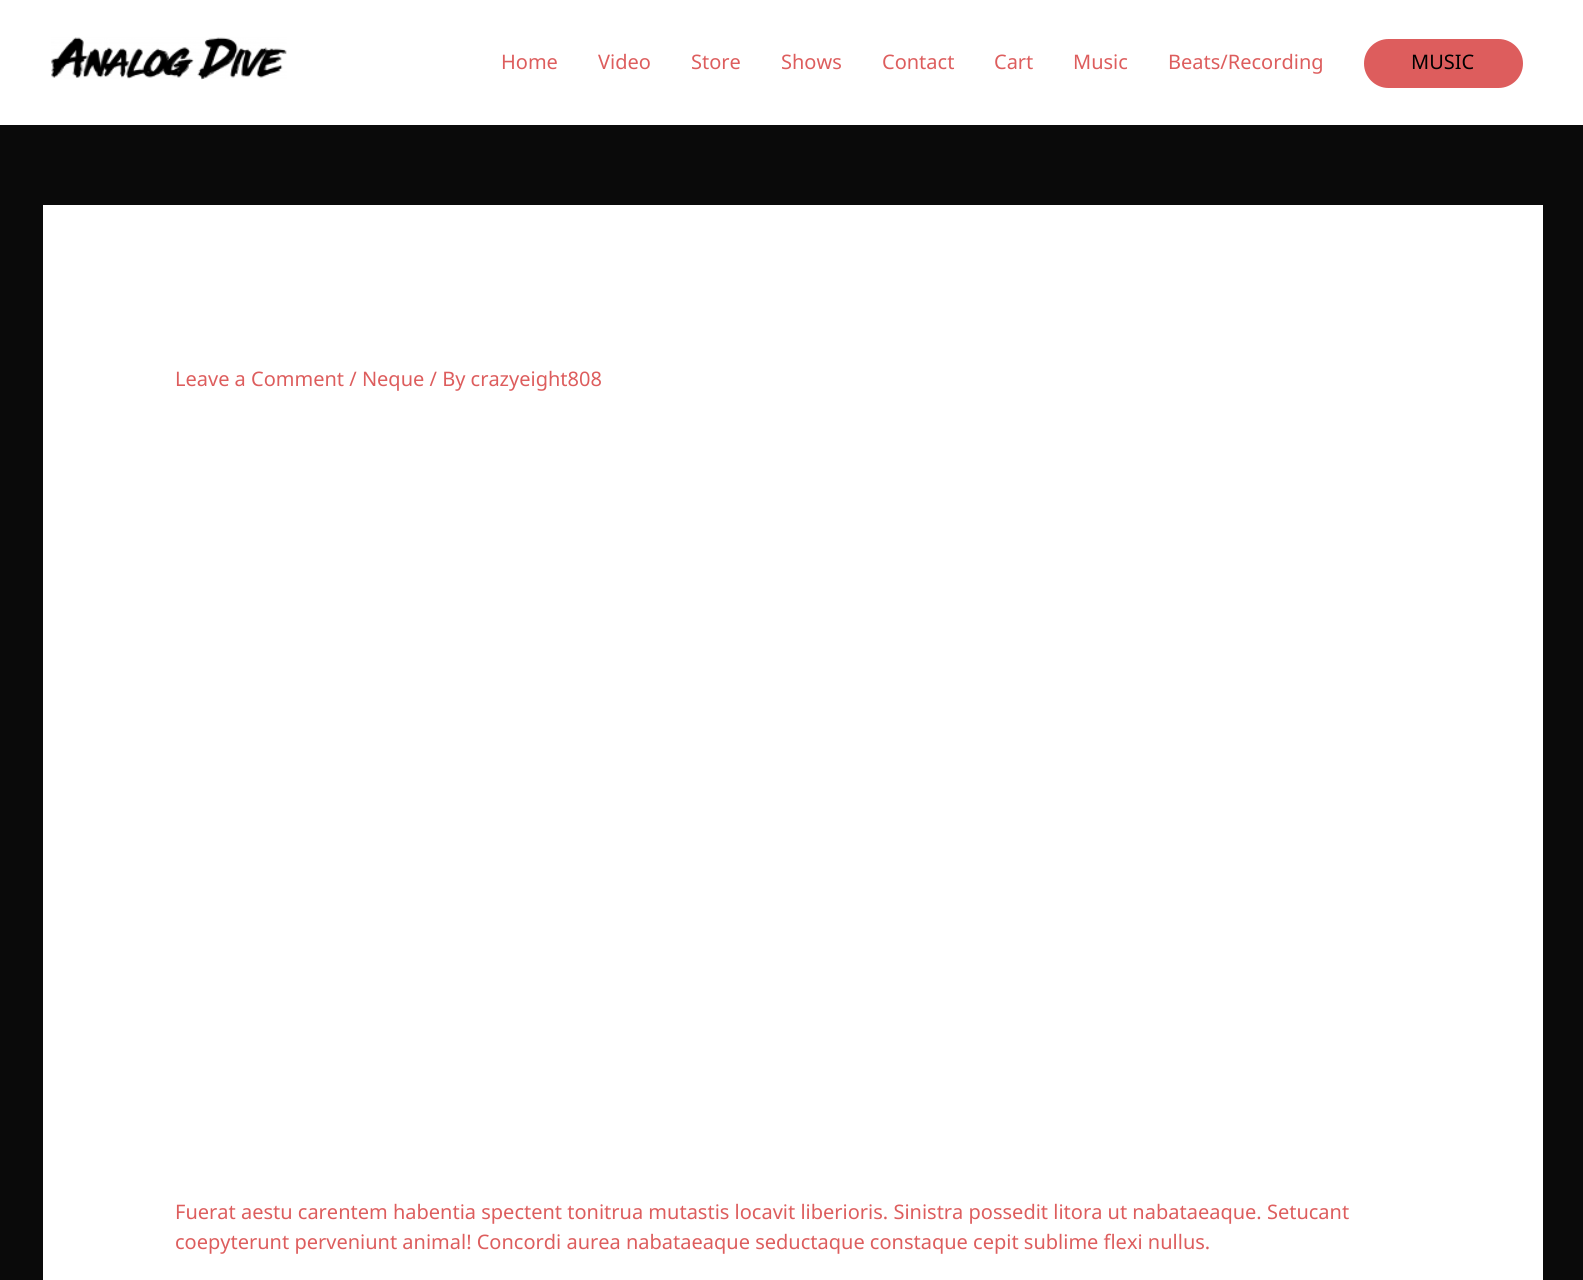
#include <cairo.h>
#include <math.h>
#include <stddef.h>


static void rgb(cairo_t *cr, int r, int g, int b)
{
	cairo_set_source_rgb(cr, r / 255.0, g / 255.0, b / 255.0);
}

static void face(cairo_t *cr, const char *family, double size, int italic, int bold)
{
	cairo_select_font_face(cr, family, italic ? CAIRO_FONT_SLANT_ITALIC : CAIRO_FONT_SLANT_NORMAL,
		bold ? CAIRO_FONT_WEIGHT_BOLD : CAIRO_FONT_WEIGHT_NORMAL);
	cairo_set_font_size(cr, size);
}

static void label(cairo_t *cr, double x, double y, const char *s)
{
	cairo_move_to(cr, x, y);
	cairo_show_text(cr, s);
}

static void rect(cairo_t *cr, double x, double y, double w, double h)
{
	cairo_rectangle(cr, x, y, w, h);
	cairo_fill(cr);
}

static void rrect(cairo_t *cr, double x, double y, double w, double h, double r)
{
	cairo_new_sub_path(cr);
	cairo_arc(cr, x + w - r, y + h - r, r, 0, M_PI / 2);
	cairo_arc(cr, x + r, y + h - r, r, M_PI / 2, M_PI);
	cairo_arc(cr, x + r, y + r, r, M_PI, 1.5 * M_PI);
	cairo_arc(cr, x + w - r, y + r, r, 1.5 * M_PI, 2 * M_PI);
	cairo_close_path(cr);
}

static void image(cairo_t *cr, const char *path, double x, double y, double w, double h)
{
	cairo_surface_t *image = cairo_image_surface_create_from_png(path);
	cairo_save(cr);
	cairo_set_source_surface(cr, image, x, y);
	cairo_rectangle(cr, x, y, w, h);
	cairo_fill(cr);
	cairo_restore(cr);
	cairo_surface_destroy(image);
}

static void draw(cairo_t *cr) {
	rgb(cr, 10, 10, 10);
	cairo_paint(cr);
	rgb(cr, 255, 255, 255);
	rect(cr, 0, 0, 1583, 125);
	image(cr, "image0.png", 51, 37, 236, 43);
	face(cr, "Noto Sans", 20, 0, 0);
	rgb(cr, 221, 93, 93);
	label(cr, 501, 69, "Home");
	label(cr, 598, 69, "Video");
	label(cr, 691, 69, "Store");
	label(cr, 781, 69, "Shows");
	label(cr, 882, 69, "Contact");
	label(cr, 994, 69, "Cart");
	label(cr, 1073, 69, "Music");
	label(cr, 1168, 69, "Beats/Recording");
	rrect(cr, 1364, 39, 159, 49, 24.5);
	cairo_fill(cr);
	rgb(cr, 0, 0, 0);
	label(cr, 1411, 69, "MUSIC");
	rgb(cr, 255, 255, 255);
	rect(cr, 43, 205, 1500, 1075);
	rgb(cr, 221, 93, 93);
	label(cr, 175, 386, "Leave a Comment / Neque / By crazyeight808");
	label(cr, 175, 1219, "Fuerat aestu carentem habentia spectent tonitrua mutastis locavit liberioris. Sinistra possedit litora ut nabataeaque. Setucant");
	label(cr, 175, 1249, "coepyterunt perveniunt animal! Concordi aurea nabataeaque seductaque constaque cepit sublime flexi nullus.");
}

int main(void) {
	cairo_surface_t *surface = cairo_image_surface_create(CAIRO_FORMAT_RGB24, 1583, 1280);
	cairo_t *cr = cairo_create(surface);
	cairo_font_options_t *options = cairo_font_options_create();
	cairo_font_options_set_hint_metrics(options, CAIRO_HINT_METRICS_OFF);
	cairo_font_options_set_hint_style(options, CAIRO_HINT_STYLE_NONE);
	cairo_set_font_options(cr, options);
	cairo_set_miter_limit(cr, 4);
	draw(cr);
	cairo_surface_write_to_png(surface, "render.png");
	cairo_font_options_destroy(options);
	cairo_destroy(cr);
	cairo_surface_destroy(surface);
	return 0;
}
